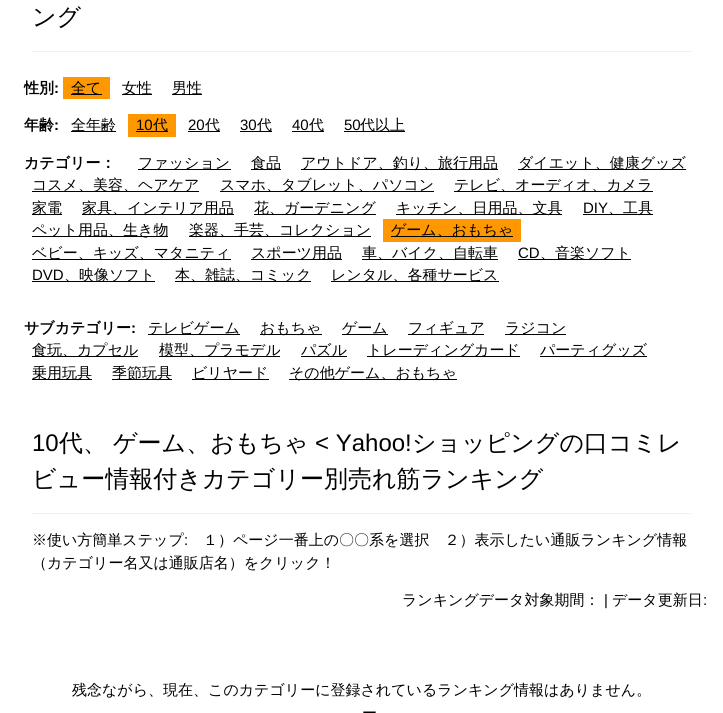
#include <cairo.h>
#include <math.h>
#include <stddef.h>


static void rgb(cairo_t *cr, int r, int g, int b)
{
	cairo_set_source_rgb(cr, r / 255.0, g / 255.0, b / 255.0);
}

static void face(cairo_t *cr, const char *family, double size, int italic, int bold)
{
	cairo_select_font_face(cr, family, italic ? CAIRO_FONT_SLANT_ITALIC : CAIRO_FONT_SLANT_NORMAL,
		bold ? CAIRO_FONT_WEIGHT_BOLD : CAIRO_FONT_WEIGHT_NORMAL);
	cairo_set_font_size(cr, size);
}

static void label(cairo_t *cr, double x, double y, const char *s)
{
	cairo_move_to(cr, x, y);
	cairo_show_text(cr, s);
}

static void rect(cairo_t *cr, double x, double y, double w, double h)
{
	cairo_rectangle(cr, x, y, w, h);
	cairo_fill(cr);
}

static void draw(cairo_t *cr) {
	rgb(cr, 255, 255, 255);
	cairo_paint(cr);
	rgb(cr, 241, 241, 241);
	rect(cr, 32, 51, 659, 1);
	face(cr, "WenQuanYi Zen Hei Medium", 24, 0, 0);
	rgb(cr, 0, 0, 0);
	label(cr, 32, 25, "ング");
	face(cr, "WenQuanYi Zen Hei", 15, 0, 1);
	label(cr, 24, 93, "性別");
	face(cr, "Liberation Sans", 15, 0, 1);
	label(cr, 54, 93, ":");
	rgb(cr, 255, 152, 0);
	rect(cr, 63, 77, 47, 22);
	rgb(cr, 0, 0, 0);
	rect(cr, 71, 94, 31, 1);
	face(cr, "WenQuanYi Zen Hei Medium", 15, 0, 0);
	label(cr, 71, 93, "全て");
	rect(cr, 122, 94, 30, 1);
	label(cr, 122, 93, "女性");
	rect(cr, 172, 94, 30, 1);
	label(cr, 172, 93, "男性");
	face(cr, "WenQuanYi Zen Hei", 15, 0, 1);
	label(cr, 24, 130, "年齢");
	face(cr, "Liberation Sans", 15, 0, 1);
	label(cr, 54, 130, ":");
	rect(cr, 71, 131, 45, 1);
	face(cr, "WenQuanYi Zen Hei Medium", 15, 0, 0);
	label(cr, 71, 130, "全年齢");
	rgb(cr, 255, 152, 0);
	rect(cr, 128, 114, 48, 23);
	face(cr, "Liberation Sans", 15, 0, 0);
	rgb(cr, 0, 0, 0);
	label(cr, 136, 130, "10");
	rect(cr, 136, 131, 32, 1);
	face(cr, "WenQuanYi Zen Hei Medium", 15, 0, 0);
	label(cr, 153, 130, "代");
	face(cr, "Liberation Sans", 15, 0, 0);
	label(cr, 188, 130, "20");
	rect(cr, 188, 131, 32, 1);
	face(cr, "WenQuanYi Zen Hei Medium", 15, 0, 0);
	label(cr, 205, 130, "代");
	face(cr, "Liberation Sans", 15, 0, 0);
	label(cr, 240, 130, "30");
	rect(cr, 240, 131, 32, 1);
	face(cr, "WenQuanYi Zen Hei Medium", 15, 0, 0);
	label(cr, 257, 130, "代");
	face(cr, "Liberation Sans", 15, 0, 0);
	label(cr, 292, 130, "40");
	rect(cr, 292, 131, 32, 1);
	face(cr, "WenQuanYi Zen Hei Medium", 15, 0, 0);
	label(cr, 309, 130, "代");
	face(cr, "Liberation Sans", 15, 0, 0);
	label(cr, 344, 130, "50");
	rect(cr, 344, 131, 61, 1);
	face(cr, "WenQuanYi Zen Hei Medium", 15, 0, 0);
	label(cr, 360, 130, "代以上");
	face(cr, "WenQuanYi Zen Hei", 15, 0, 1);
	label(cr, 24, 168, "カテゴリー：");
	rect(cr, 138, 169, 93, 1);
	face(cr, "WenQuanYi Zen Hei Medium", 15, 0, 0);
	label(cr, 138, 168, "ファッション");
	rect(cr, 251, 169, 30, 1);
	label(cr, 251, 168, "食品");
	rect(cr, 301, 169, 197, 1);
	label(cr, 301, 168, "アウトドア、釣り、旅行用品");
	rect(cr, 518, 169, 168, 1);
	label(cr, 518, 168, "ダイエット、健康グッズ");
	rect(cr, 32, 191, 167, 1);
	label(cr, 32, 190, "コスメ、美容、ヘアケア");
	rect(cr, 220, 191, 214, 1);
	label(cr, 220, 190, "スマホ、タブレット、パソコン");
	rect(cr, 454, 191, 199, 1);
	label(cr, 454, 190, "テレビ、オーディオ、カメラ");
	rect(cr, 32, 214, 30, 1);
	label(cr, 32, 213, "家電");
	rect(cr, 82, 214, 152, 1);
	label(cr, 82, 213, "家具、インテリア用品");
	rect(cr, 254, 214, 122, 1);
	label(cr, 254, 213, "花、ガーデニング");
	rect(cr, 396, 214, 166, 1);
	label(cr, 396, 213, "キッチン、日用品、文具");
	face(cr, "Liberation Sans", 15, 0, 0);
	label(cr, 583, 213, "DIY");
	rect(cr, 583, 214, 70, 1);
	face(cr, "WenQuanYi Zen Hei Medium", 15, 0, 0);
	label(cr, 608, 213, "、工具");
	rect(cr, 32, 236, 136, 1);
	label(cr, 32, 235, "ペット用品、生き物");
	rect(cr, 189, 236, 182, 1);
	label(cr, 189, 235, "楽器、手芸、コレクション");
	rgb(cr, 255, 152, 0);
	rect(cr, 383, 219, 138, 23);
	rgb(cr, 0, 0, 0);
	rect(cr, 391, 236, 122, 1);
	label(cr, 391, 235, "ゲーム、おもちゃ");
	rect(cr, 32, 259, 199, 1);
	label(cr, 32, 258, "ベビー、キッズ、マタニティ");
	rect(cr, 251, 259, 91, 1);
	label(cr, 251, 258, "スポーツ用品");
	rect(cr, 362, 259, 136, 1);
	label(cr, 362, 258, "車、バイク、自転車");
	face(cr, "Liberation Sans", 15, 0, 0);
	label(cr, 518, 258, "CD");
	rect(cr, 518, 259, 113, 1);
	face(cr, "WenQuanYi Zen Hei Medium", 15, 0, 0);
	label(cr, 540, 258, "、音楽ソフト");
	face(cr, "Liberation Sans", 15, 0, 0);
	label(cr, 32, 280, "DVD");
	rect(cr, 32, 281, 123, 1);
	face(cr, "WenQuanYi Zen Hei Medium", 15, 0, 0);
	label(cr, 64, 280, "、映像ソフト");
	rect(cr, 175, 281, 136, 1);
	label(cr, 175, 280, "本、雑誌、コミック");
	rect(cr, 331, 281, 168, 1);
	label(cr, 331, 280, "レンタル、各種サービス");
	face(cr, "WenQuanYi Zen Hei", 15, 0, 1);
	label(cr, 24, 333, "サブカテゴリー");
	face(cr, "Liberation Sans", 15, 0, 1);
	label(cr, 131, 333, ":");
	rect(cr, 148, 334, 92, 1);
	face(cr, "WenQuanYi Zen Hei Medium", 15, 0, 0);
	label(cr, 148, 333, "テレビゲーム");
	rect(cr, 260, 334, 62, 1);
	label(cr, 260, 333, "おもちゃ");
	rect(cr, 342, 334, 46, 1);
	label(cr, 342, 333, "ゲーム");
	rect(cr, 408, 334, 76, 1);
	label(cr, 408, 333, "フィギュア");
	rect(cr, 505, 334, 61, 1);
	label(cr, 505, 333, "ラジコン");
	rect(cr, 32, 356, 106, 1);
	label(cr, 32, 355, "食玩、カプセル");
	rect(cr, 159, 356, 121, 1);
	label(cr, 159, 355, "模型、プラモデル");
	label(cr, 301, 355, "パズル");
	rect(cr, 301, 356, 46, 1);
	rect(cr, 367, 356, 153, 1);
	label(cr, 367, 355, "トレーディングカード");
	rect(cr, 540, 356, 107, 1);
	label(cr, 540, 355, "パーティグッズ");
	rect(cr, 32, 379, 60, 1);
	label(cr, 32, 378, "乗用玩具");
	rect(cr, 112, 379, 60, 1);
	label(cr, 112, 378, "季節玩具");
	rect(cr, 192, 379, 77, 1);
	label(cr, 192, 378, "ビリヤード");
	rect(cr, 289, 379, 168, 1);
	label(cr, 289, 378, "その他ゲーム、おもちゃ");
	rgb(cr, 241, 241, 241);
	rect(cr, 32, 513, 659, 1);
	face(cr, "Liberation Sans", 24, 0, 0);
	rgb(cr, 0, 0, 0);
	label(cr, 32, 451, "10");
	face(cr, "WenQuanYi Zen Hei Medium", 24, 0, 0);
	label(cr, 59, 451, "代、");
	label(cr, 113, 451, "ゲーム、おもちゃ");
	face(cr, "Liberation Sans", 24, 0, 0);
	label(cr, 315, 451, "< Yahoo!");
	face(cr, "WenQuanYi Zen Hei Medium", 24, 0, 0);
	label(cr, 412, 451, "ショッピングの口コミレ");
	label(cr, 32, 487, "ビュー情報付きカテゴリー別売れ筋ランキング");
	face(cr, "WenQuanYi Zen Hei Medium", 15, 0, 0);
	label(cr, 32, 545, "※使い方簡単ステップ");
	face(cr, "Liberation Sans", 15, 0, 0);
	label(cr, 184, 545, ":");
	face(cr, "WenQuanYi Zen Hei Medium", 15, 0, 0);
	label(cr, 203, 545, "１）ページ一番上の〇〇系を選択　２）表示したい通販ランキング情報");
	label(cr, 32, 568, "（カテゴリー名又は通販店名）をクリック！");
	label(cr, 402, 605, "ランキングデータ対象期間：");
	face(cr, "Liberation Sans", 15, 0, 0);
	label(cr, 604, 605, "|");
	face(cr, "WenQuanYi Zen Hei Medium", 15, 0, 0);
	label(cr, 612, 605, "データ更新日");
	face(cr, "Liberation Sans", 15, 0, 0);
	label(cr, 703, 605, ":");
	face(cr, "WenQuanYi Zen Hei Medium", 15, 0, 0);
	label(cr, 72, 695, "残念ながら、現在、このカテゴリーに登録されているランキング情報はありません。");
	label(cr, 362, 718, "ー");
}

int main(void) {
	cairo_surface_t *surface = cairo_image_surface_create(CAIRO_FORMAT_RGB24, 723, 713);
	cairo_t *cr = cairo_create(surface);
	cairo_font_options_t *options = cairo_font_options_create();
	cairo_font_options_set_hint_metrics(options, CAIRO_HINT_METRICS_OFF);
	cairo_font_options_set_hint_style(options, CAIRO_HINT_STYLE_NONE);
	cairo_set_font_options(cr, options);
	cairo_set_miter_limit(cr, 4);
	draw(cr);
	cairo_surface_write_to_png(surface, "render.png");
	cairo_font_options_destroy(options);
	cairo_destroy(cr);
	cairo_surface_destroy(surface);
	return 0;
}
